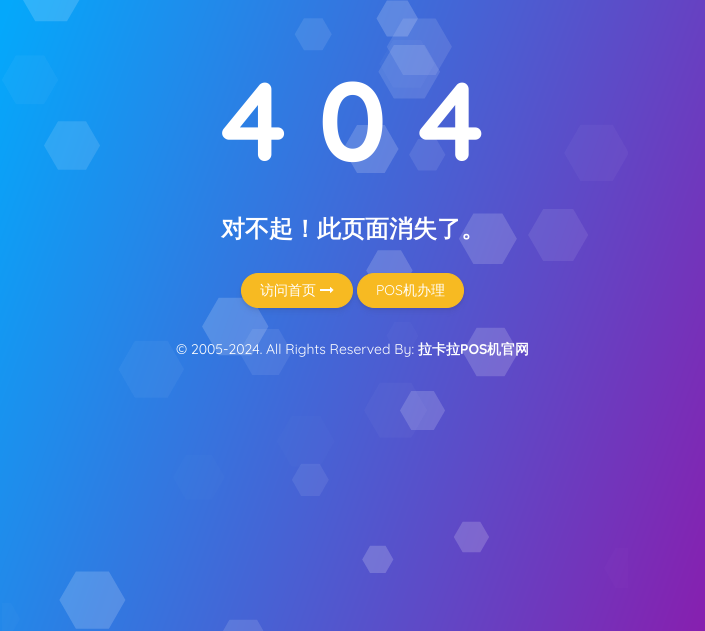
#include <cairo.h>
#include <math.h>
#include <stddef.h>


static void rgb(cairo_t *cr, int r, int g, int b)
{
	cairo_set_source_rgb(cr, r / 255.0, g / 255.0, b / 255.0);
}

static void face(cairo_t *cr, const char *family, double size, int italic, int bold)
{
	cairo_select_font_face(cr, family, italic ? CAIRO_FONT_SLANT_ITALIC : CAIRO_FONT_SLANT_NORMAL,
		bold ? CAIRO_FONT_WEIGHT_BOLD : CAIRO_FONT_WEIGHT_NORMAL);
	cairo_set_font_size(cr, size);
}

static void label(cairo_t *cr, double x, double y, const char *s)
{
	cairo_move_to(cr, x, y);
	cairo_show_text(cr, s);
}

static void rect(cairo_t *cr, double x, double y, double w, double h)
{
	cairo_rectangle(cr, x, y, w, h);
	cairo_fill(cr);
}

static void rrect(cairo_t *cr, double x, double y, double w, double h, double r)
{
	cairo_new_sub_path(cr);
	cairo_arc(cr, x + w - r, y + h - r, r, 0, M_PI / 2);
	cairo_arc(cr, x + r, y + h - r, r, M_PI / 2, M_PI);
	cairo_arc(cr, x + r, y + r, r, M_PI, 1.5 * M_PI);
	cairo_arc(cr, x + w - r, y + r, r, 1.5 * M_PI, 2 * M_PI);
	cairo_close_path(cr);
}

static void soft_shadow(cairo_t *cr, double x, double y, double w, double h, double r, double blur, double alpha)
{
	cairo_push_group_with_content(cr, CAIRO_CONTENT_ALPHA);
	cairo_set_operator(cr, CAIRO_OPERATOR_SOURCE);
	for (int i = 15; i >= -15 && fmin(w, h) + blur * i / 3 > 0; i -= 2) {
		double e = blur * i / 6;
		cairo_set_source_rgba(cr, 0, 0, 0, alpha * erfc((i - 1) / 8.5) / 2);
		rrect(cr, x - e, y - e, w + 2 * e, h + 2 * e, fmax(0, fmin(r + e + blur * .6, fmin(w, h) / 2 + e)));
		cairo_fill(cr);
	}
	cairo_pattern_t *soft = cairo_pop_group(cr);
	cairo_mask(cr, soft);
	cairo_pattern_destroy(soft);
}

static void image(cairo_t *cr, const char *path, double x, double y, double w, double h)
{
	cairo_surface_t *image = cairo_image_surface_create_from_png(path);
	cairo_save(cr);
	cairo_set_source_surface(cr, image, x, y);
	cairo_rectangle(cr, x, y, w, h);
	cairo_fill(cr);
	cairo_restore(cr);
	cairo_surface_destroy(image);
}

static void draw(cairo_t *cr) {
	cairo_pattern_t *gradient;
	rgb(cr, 255, 255, 255);
	cairo_paint(cr);
	gradient = cairo_pattern_create_linear(-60, 165, 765, 466);
	cairo_pattern_add_color_stop_rgba(gradient, 0.01, 0.016, 0.659, 0.984, 1);
	cairo_pattern_add_color_stop_rgba(gradient, 1, 0.529, 0.122, 0.686, 1);
	cairo_set_source(cr, gradient);
	cairo_pattern_destroy(gradient);
	rect(cr, 0, 0, 705, 631);
	image(cr, "image0.png", 2, 0, 626, 631);
	face(cr, "Quicksand", 112, 0, 1);
	rgb(cr, 255, 255, 255);
	label(cr, 221, 161, "4 0 4");
	face(cr, "WenQuanYi Zen Hei", 24, 0, 1);
	label(cr, 221, 237, "对不起！此页面消失了。");
	rgb(cr, 0, 0, 0);
	soft_shadow(cr, 241, 274, 112, 35, 17.5, 1.5, 0.08);
	rgb(cr, 50, 50, 93);
	soft_shadow(cr, 241, 277, 112, 35, 17.5, 3, 0.11);
	rgb(cr, 247, 186, 34);
	rrect(cr, 241.5, 273.5, 111, 34, 17);
	cairo_fill_preserve(cr);
	cairo_set_line_width(cr, 1);
	cairo_stroke(cr);
	face(cr, "WenQuanYi Zen Hei Medium", 14, 0, 0);
	rgb(cr, 255, 255, 255);
	label(cr, 260, 295, "访问首页");
	image(cr, "image1.png", 320, 287, 14, 6);
	rgb(cr, 0, 0, 0);
	soft_shadow(cr, 357, 274, 107, 35, 17.5, 1.5, 0.08);
	rgb(cr, 50, 50, 93);
	soft_shadow(cr, 357, 277, 107, 35, 17.5, 3, 0.11);
	rgb(cr, 247, 186, 34);
	rrect(cr, 357.5, 273.5, 106, 34, 17);
	cairo_fill_preserve(cr);
	cairo_stroke(cr);
	face(cr, "Quicksand", 14, 0, 0);
	rgb(cr, 255, 255, 255);
	label(cr, 376, 295, "POS");
	face(cr, "WenQuanYi Zen Hei Medium", 14, 0, 0);
	label(cr, 403, 295, "机办理");
	face(cr, "Quicksand", 14, 0, 0);
	label(cr, 176, 354, "© 2005-2024. All Rights Reserved By:");
	face(cr, "WenQuanYi Zen Hei", 14, 0, 1);
	label(cr, 418, 354, "拉卡拉");
	face(cr, "Quicksand", 14, 0, 1);
	label(cr, 460, 354, "POS");
	face(cr, "WenQuanYi Zen Hei", 14, 0, 1);
	label(cr, 487, 354, "机官网");
}

int main(void) {
	cairo_surface_t *surface = cairo_image_surface_create(CAIRO_FORMAT_RGB24, 705, 631);
	cairo_t *cr = cairo_create(surface);
	cairo_font_options_t *options = cairo_font_options_create();
	cairo_font_options_set_hint_metrics(options, CAIRO_HINT_METRICS_OFF);
	cairo_font_options_set_hint_style(options, CAIRO_HINT_STYLE_NONE);
	cairo_set_font_options(cr, options);
	cairo_set_miter_limit(cr, 4);
	draw(cr);
	cairo_surface_write_to_png(surface, "render.png");
	cairo_font_options_destroy(options);
	cairo_destroy(cr);
	cairo_surface_destroy(surface);
	return 0;
}
